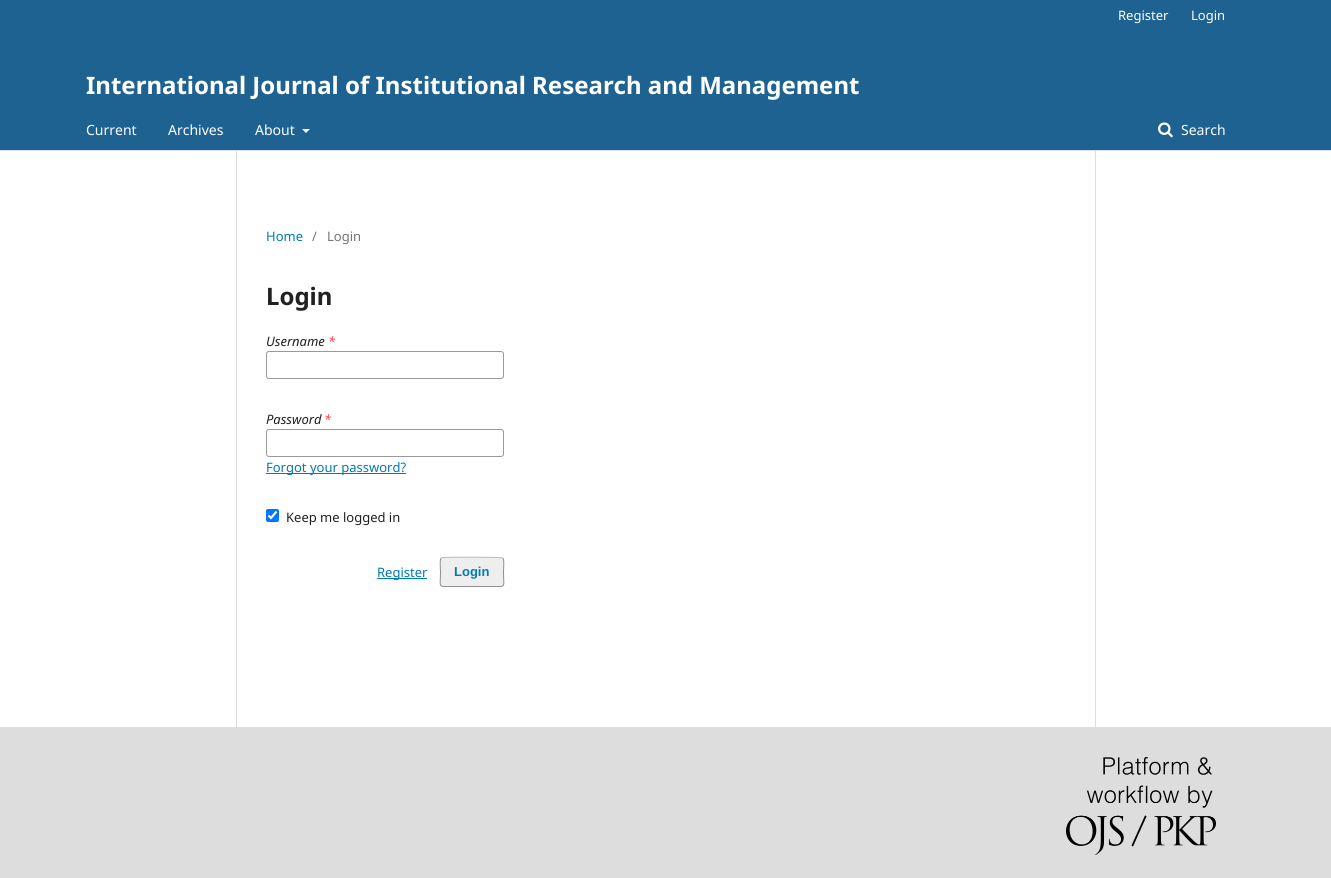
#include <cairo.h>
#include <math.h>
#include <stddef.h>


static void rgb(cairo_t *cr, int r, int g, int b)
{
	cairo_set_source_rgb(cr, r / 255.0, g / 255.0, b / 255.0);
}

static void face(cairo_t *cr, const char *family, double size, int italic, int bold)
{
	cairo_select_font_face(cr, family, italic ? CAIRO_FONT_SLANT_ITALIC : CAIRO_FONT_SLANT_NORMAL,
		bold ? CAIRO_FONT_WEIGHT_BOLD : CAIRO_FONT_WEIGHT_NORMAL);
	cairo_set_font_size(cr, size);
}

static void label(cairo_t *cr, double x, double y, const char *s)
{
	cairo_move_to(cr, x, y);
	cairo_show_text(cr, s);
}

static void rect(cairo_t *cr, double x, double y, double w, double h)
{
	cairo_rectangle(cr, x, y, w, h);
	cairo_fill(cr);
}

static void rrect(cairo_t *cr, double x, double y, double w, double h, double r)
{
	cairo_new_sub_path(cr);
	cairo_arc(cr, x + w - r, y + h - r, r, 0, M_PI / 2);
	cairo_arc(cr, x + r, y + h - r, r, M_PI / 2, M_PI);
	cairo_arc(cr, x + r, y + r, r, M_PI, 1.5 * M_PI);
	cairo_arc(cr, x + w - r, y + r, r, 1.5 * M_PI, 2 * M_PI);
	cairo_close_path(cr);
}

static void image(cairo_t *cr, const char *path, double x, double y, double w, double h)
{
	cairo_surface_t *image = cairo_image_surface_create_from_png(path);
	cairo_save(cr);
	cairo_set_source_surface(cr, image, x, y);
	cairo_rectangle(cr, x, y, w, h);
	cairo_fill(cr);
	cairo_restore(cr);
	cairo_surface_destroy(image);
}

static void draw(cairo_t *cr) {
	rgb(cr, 255, 255, 255);
	cairo_paint(cr);
	rgb(cr, 30, 98, 146);
	rect(cr, 0, 0, 1331, 150);
	rgb(cr, 221, 221, 221);
	rect(cr, 0, 150, 1331, 1);
	face(cr, "Noto Sans", 13, 0, 0);
	rgb(cr, 255, 255, 255);
	label(cr, 1118, 20, "Register");
	label(cr, 1191, 20, "Login");
	face(cr, "Noto Sans", 24, 0, 1);
	label(cr, 86, 94, "International Journal of Institutional Research and Management");
	face(cr, "Noto Sans", 14, 0, 0);
	label(cr, 86, 135, "Current");
	label(cr, 168, 135, "Archives");
	label(cr, 255, 135, "About");
	cairo_new_path(cr);
	cairo_move_to(cr, 302, 129);
	cairo_line_to(cr, 310, 129);
	cairo_line_to(cr, 306, 133);
	cairo_close_path(cr);
	cairo_fill(cr);
	image(cr, "image0.png", 1158, 122, 15, 16);
	label(cr, 1181, 135, "Search");
	rgb(cr, 221, 221, 221);
	rect(cr, 236, 151, 1, 576);
	face(cr, "Noto Sans", 13, 0, 0);
	rgb(cr, 0, 122, 178);
	label(cr, 266, 241, "Home");
	rgb(cr, 117, 117, 117);
	label(cr, 312, 241, "/");
	label(cr, 327, 241, "Login");
	face(cr, "Noto Sans", 24, 0, 1);
	rgb(cr, 33, 33, 33);
	label(cr, 266, 305, "Login");
	face(cr, "Noto Sans", 13, 1, 0);
	label(cr, 266, 346, "Username");
	rgb(cr, 255, 64, 64);
	label(cr, 328, 346, "*");
	rrect(cr, 266.5, 351.5, 237, 27, 2.5);
	rgb(cr, 153, 153, 153);
	cairo_set_line_width(cr, 1);
	cairo_stroke(cr);
	rgb(cr, 33, 33, 33);
	label(cr, 266, 424, "Password");
	rgb(cr, 255, 64, 64);
	label(cr, 324, 424, "*");
	rrect(cr, 266.5, 429.5, 237, 27, 2.5);
	rgb(cr, 153, 153, 153);
	cairo_stroke(cr);
	rgb(cr, 0, 122, 178);
	rect(cr, 266, 473, 140, 1);
	face(cr, "Noto Sans", 13, 0, 0);
	label(cr, 266, 472, "Forgot your password?");
	rgb(cr, 0, 117, 255);
	rrect(cr, 266, 509, 13, 13, 2);
	cairo_fill(cr);
	cairo_new_path(cr);
	cairo_move_to(cr, 268.5, 515.5);
	cairo_line_to(cr, 271, 518);
	cairo_line_to(cr, 276.5, 511.5);
	rgb(cr, 255, 255, 255);
	cairo_set_line_width(cr, 2.1);
	cairo_stroke(cr);
	rgb(cr, 33, 33, 33);
	label(cr, 286, 522, "Keep me logged in");
	rgb(cr, 0, 122, 178);
	rect(cr, 377, 578, 50, 1);
	label(cr, 377, 577, "Register");
	rgb(cr, 238, 238, 238);
	rrect(cr, 440, 557, 64, 30, 3);
	cairo_fill(cr);
	cairo_new_path(cr);
	cairo_move_to(cr, 441, 558);
	cairo_line_to(cr, 443, 557.5);
	cairo_curve_to(cr, 448, 557, 501.5, 557, 502.5, 558);
	cairo_line_to(cr, 503, 558);
	rgb(cr, 187, 187, 187);
	cairo_set_line_width(cr, 1);
	cairo_stroke(cr);
	cairo_new_path(cr);
	cairo_move_to(cr, 503, 558);
	cairo_curve_to(cr, 504.5, 560, 503.5, 569.5, 503.5, 572);
	cairo_curve_to(cr, 503.5, 588, 507, 586.5, 491.5, 586.5);
	cairo_line_to(cr, 452.5, 586.5);
	cairo_curve_to(cr, 437, 586.5, 440.5, 588, 440.5, 572);
	cairo_curve_to(cr, 440.5, 569.5, 439.5, 560, 441, 558);
	cairo_set_source_rgba(cr, 0, 0, 0, 0.4);
	cairo_stroke(cr);
	face(cr, "Liberation Sans", 13, 0, 1);
	rgb(cr, 0, 122, 178);
	label(cr, 454, 576, "Login");
	rgb(cr, 221, 221, 221);
	rect(cr, 1095, 151, 1, 576);
	rect(cr, 0, 727, 1331, 151);
	image(cr, "image1.png", 1066, 757, 150, 98);
}

int main(void) {
	cairo_surface_t *surface = cairo_image_surface_create(CAIRO_FORMAT_RGB24, 1331, 878);
	cairo_t *cr = cairo_create(surface);
	cairo_font_options_t *options = cairo_font_options_create();
	cairo_font_options_set_hint_metrics(options, CAIRO_HINT_METRICS_OFF);
	cairo_font_options_set_hint_style(options, CAIRO_HINT_STYLE_NONE);
	cairo_set_font_options(cr, options);
	cairo_set_miter_limit(cr, 4);
	draw(cr);
	cairo_surface_write_to_png(surface, "render.png");
	cairo_font_options_destroy(options);
	cairo_destroy(cr);
	cairo_surface_destroy(surface);
	return 0;
}
